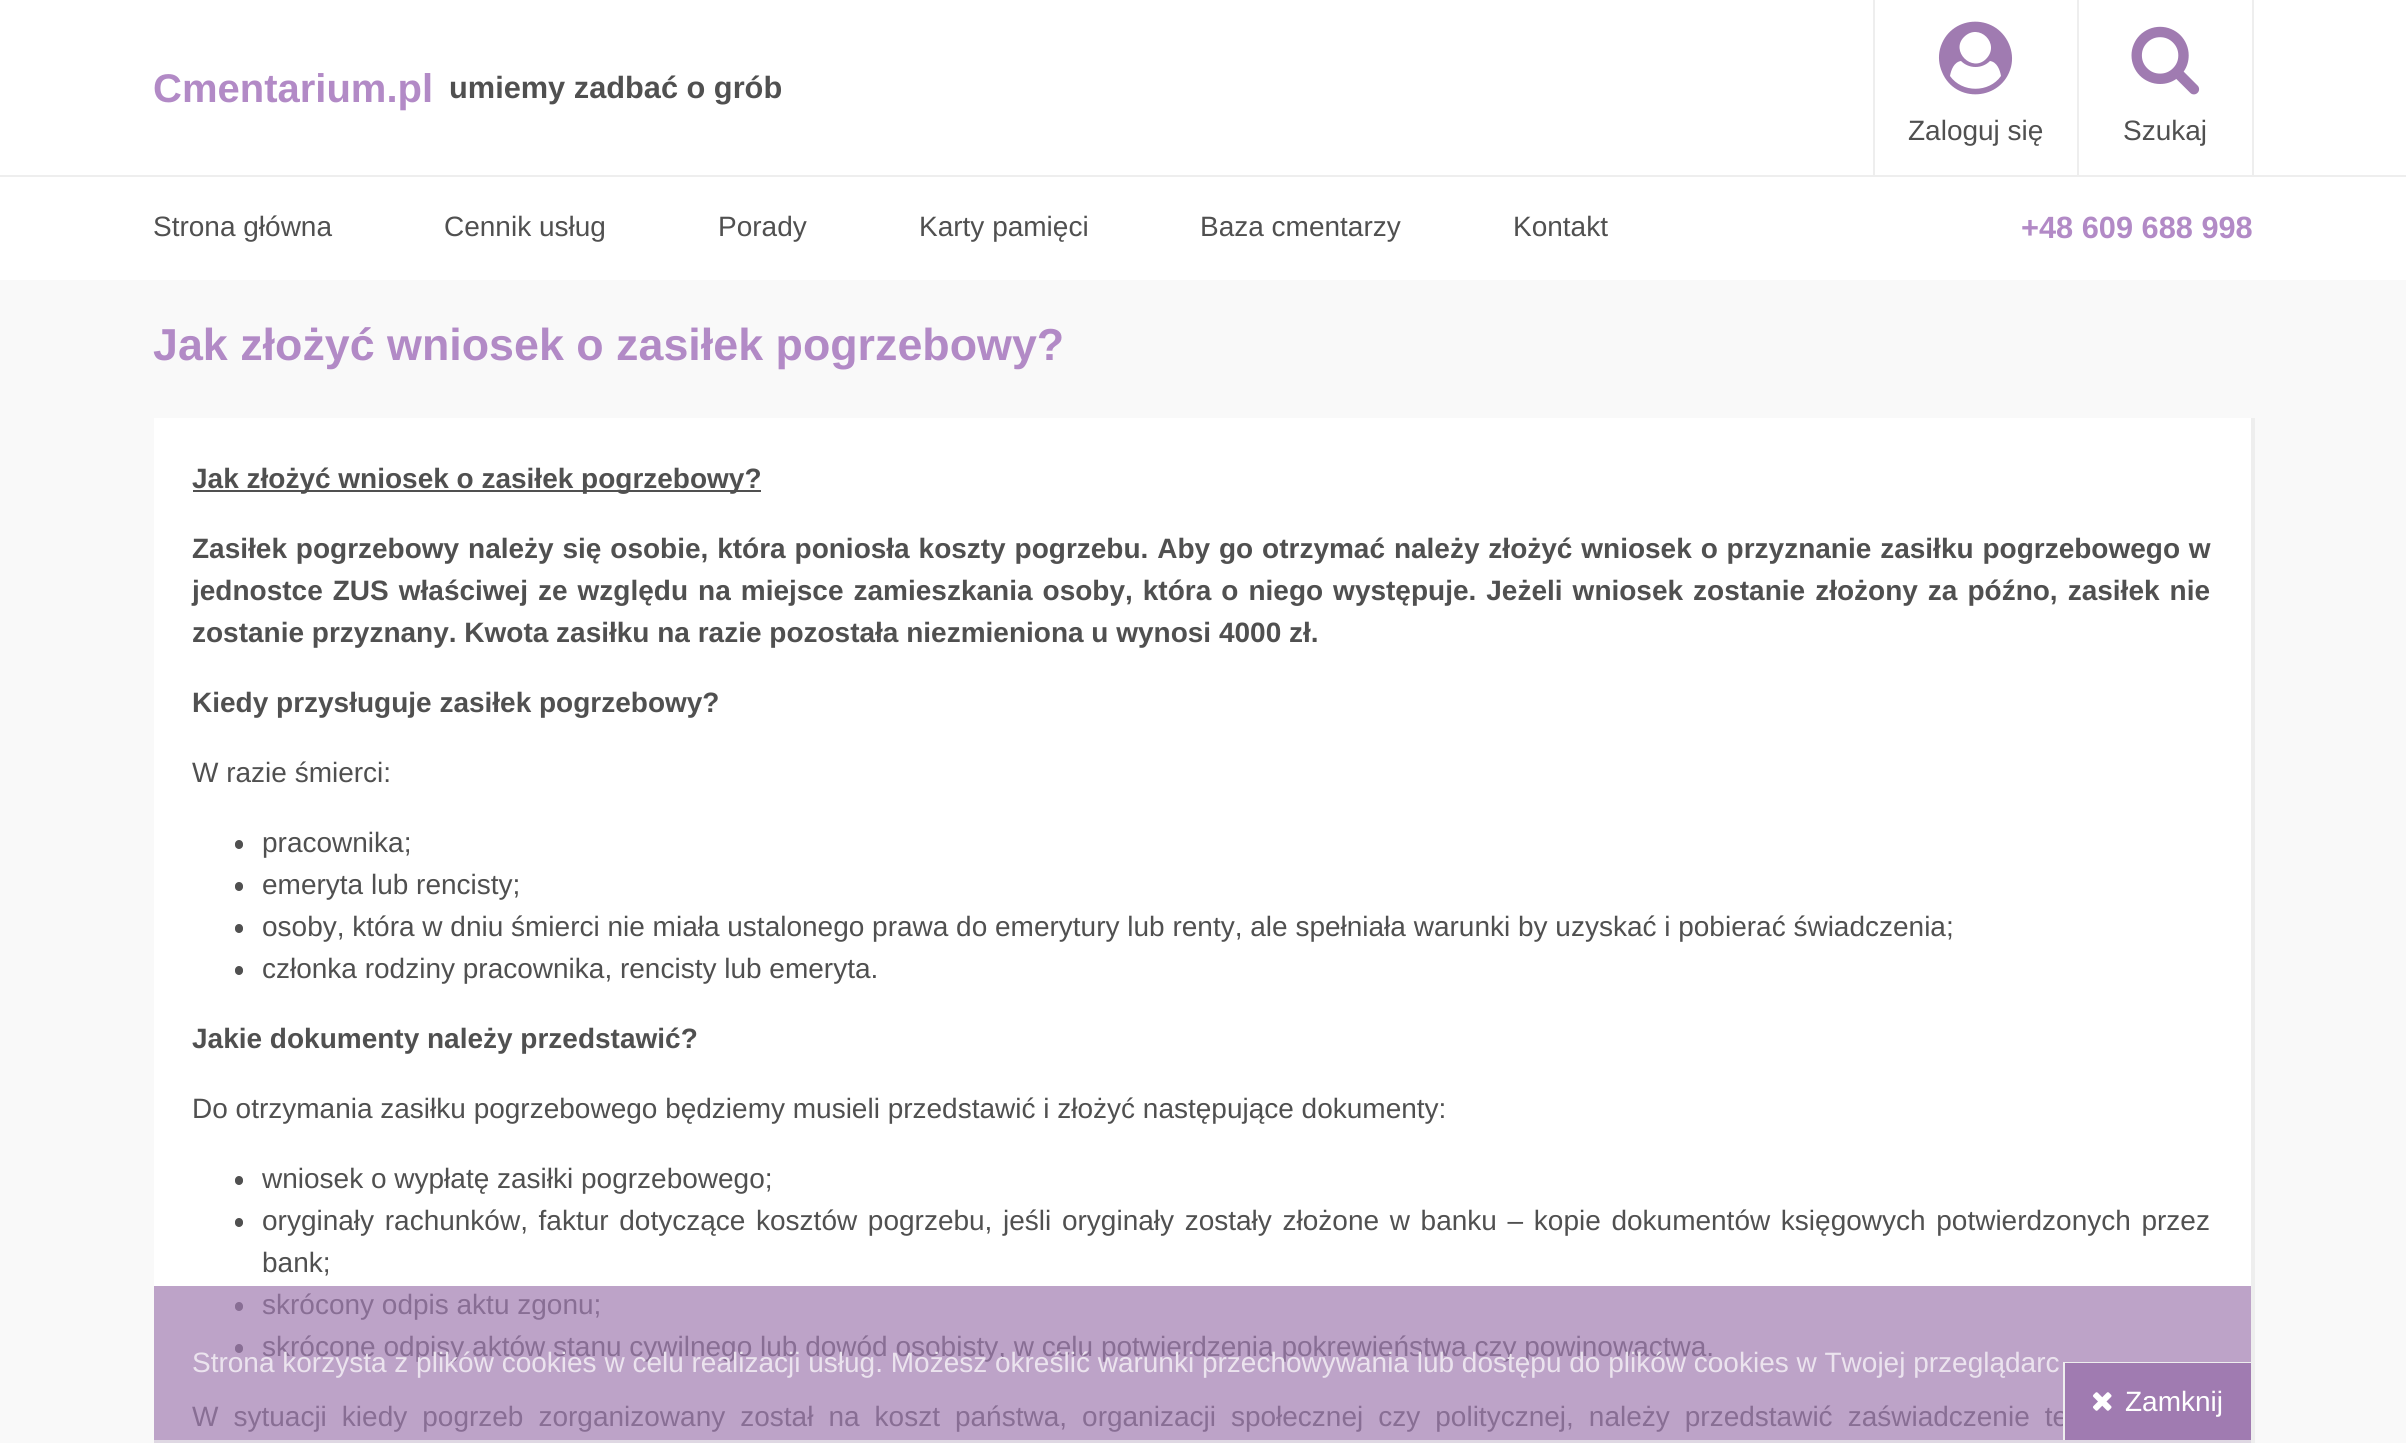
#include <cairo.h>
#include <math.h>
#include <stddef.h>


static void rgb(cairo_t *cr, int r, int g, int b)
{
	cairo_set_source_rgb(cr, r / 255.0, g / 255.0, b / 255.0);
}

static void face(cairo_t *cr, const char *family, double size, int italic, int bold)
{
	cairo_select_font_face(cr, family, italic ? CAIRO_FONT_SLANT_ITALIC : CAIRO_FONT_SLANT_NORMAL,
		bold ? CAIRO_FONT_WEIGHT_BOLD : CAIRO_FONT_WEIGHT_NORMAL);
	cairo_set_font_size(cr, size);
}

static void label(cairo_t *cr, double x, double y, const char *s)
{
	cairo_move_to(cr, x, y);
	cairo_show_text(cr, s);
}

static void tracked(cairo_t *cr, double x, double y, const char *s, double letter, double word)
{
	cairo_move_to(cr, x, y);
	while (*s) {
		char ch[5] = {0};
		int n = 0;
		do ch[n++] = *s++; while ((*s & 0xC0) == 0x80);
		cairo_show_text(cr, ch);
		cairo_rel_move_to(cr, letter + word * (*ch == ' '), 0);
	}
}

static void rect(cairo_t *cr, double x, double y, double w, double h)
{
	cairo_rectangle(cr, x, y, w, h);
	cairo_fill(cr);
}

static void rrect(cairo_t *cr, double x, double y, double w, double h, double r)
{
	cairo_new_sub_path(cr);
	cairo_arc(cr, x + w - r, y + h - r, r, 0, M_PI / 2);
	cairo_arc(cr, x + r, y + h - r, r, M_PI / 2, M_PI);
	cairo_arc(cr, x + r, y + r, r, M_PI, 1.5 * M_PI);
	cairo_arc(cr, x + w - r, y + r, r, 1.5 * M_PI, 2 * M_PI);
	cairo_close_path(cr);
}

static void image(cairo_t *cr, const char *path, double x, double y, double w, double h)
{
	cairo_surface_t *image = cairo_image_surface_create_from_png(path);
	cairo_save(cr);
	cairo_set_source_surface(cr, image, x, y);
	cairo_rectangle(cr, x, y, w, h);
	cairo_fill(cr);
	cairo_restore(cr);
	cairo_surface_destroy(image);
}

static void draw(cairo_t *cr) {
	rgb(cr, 255, 255, 255);
	cairo_paint(cr);
	rgb(cr, 238, 238, 238);
	rect(cr, 0, 175, 2406, 2);
	face(cr, "Liberation Sans", 40, 0, 1);
	rgb(cr, 178, 138, 198);
	label(cr, 153, 102, "Cmentarium.pl");
	face(cr, "Liberation Sans", 30.75, 0, 1);
	rgb(cr, 80, 80, 80);
	label(cr, 449, 98, "umiemy zadbać o grób");
	rgb(cr, 238, 238, 238);
	rect(cr, 1873, 0, 2, 175);
	rect(cr, 2077, 0, 2, 175);
	rgb(cr, 160, 123, 177);
	cairo_new_path(cr);
	cairo_move_to(cr, 2001, 76);
	cairo_curve_to(cr, 2000, 70, 1997, 62, 1990, 61);
	cairo_curve_to(cr, 1982, 69, 1969, 69, 1961, 61);
	cairo_curve_to(cr, 1954, 62, 1951, 70, 1950, 76);
	cairo_curve_to(cr, 1962, 93, 1989, 93, 2001, 76);
	cairo_close_path(cr);
	cairo_move_to(cr, 1986, 59);
	cairo_curve_to(cr, 2001, 44, 1979, 22, 1964, 37);
	cairo_curve_to(cr, 1950, 51, 1972, 73, 1986, 59);
	cairo_close_path(cr);
	cairo_move_to(cr, 2009, 44);
	cairo_curve_to(cr, 2012, 51, 2013, 59, 2011, 67);
	cairo_curve_to(cr, 2002, 101, 1955, 104, 1942, 72);
	cairo_curve_to(cr, 1939, 65, 1938, 57, 1940, 49);
	cairo_curve_to(cr, 1949, 15, 1995, 12, 2009, 44);
	cairo_close_path(cr);
	cairo_fill(cr);
	face(cr, "Liberation Sans", 28, 0, 0);
	rgb(cr, 80, 80, 80);
	label(cr, 1908, 140, "Zaloguj się");
	rgb(cr, 238, 238, 238);
	rect(cr, 2252, 0, 2, 175);
	image(cr, "image0.png", 2131, 26, 69, 69);
	rgb(cr, 80, 80, 80);
	label(cr, 2123, 140, "Szukaj");
	label(cr, 153, 236, "Strona główna");
	label(cr, 444, 236, "Cennik usług");
	label(cr, 718, 236, "Porady");
	label(cr, 919, 236, "Karty pamięci");
	label(cr, 1200, 236, "Baza cmentarzy");
	label(cr, 1513, 236, "Kontakt");
	face(cr, "Liberation Sans", 30.75, 0, 1);
	rgb(cr, 178, 138, 198);
	label(cr, 2021, 238, "+48 609 688 998");
	rgb(cr, 249, 249, 249);
	rect(cr, 0, 280, 2406, 1163);
	face(cr, "Liberation Sans", 44.8, 0, 1);
	rgb(cr, 178, 138, 198);
	label(cr, 153, 360, "Jak złożyć wniosek o zasiłek pogrzebowy?");
	rgb(cr, 255, 255, 255);
	rect(cr, 154, 418, 2097, 868);
	rgb(cr, 189, 163, 200);
	rect(cr, 154, 1286, 2097, 154);
	rgb(cr, 223, 216, 227);
	rect(cr, 154, 1440, 2100, 3);
	rgb(cr, 238, 238, 238);
	rect(cr, 2251, 418, 4, 1025);
	rgb(cr, 80, 80, 80);
	rect(cr, 193, 490, 568, 2);
	face(cr, "Liberation Sans", 28, 0, 1);
	label(cr, 192, 488, "Jak złożyć wniosek o zasiłek pogrzebowy?");
	tracked(cr, 192, 558, "Zasiłek pogrzebowy należy się osobie, która poniosła koszty pogrzebu. Aby go otrzymać należy złożyć wniosek o przyznanie zasiłku pogrzebowego w", 0, 1.1);
	tracked(cr, 192, 600, "jednostce ZUS właściwej ze względu na miejsce zamieszkania osoby, która o niego występuje. Jeżeli wniosek zostanie złożony za późno, zasiłek nie", 0, 2.25);
	label(cr, 192, 642, "zostanie przyznany. Kwota zasiłku na razie pozostała niezmieniona u wynosi 4000 zł.");
	label(cr, 192, 712, "Kiedy przysługuje zasiłek pogrzebowy?");
	face(cr, "Liberation Sans", 28, 0, 0);
	label(cr, 192, 782, "W razie śmierci:");
	rrect(cr, 235, 840, 8, 9, 4);
	cairo_fill(cr);
	label(cr, 262, 852, "pracownika;");
	rrect(cr, 235, 882, 8, 9, 4);
	cairo_fill(cr);
	label(cr, 262, 894, "emeryta lub rencisty;");
	rrect(cr, 235, 924, 8, 9, 4);
	cairo_fill(cr);
	label(cr, 262, 936, "osoby, która w dniu śmierci nie miała ustalonego prawa do emerytury lub renty, ale spełniała warunki by uzyskać i pobierać świadczenia;");
	rrect(cr, 235, 966, 8, 9, 4);
	cairo_fill(cr);
	label(cr, 262, 978, "członka rodziny pracownika, rencisty lub emeryta.");
	face(cr, "Liberation Sans", 28, 0, 1);
	label(cr, 192, 1048, "Jakie dokumenty należy przedstawić?");
	face(cr, "Liberation Sans", 28, 0, 0);
	label(cr, 192, 1118, "Do otrzymania zasiłku pogrzebowego będziemy musieli przedstawić i złożyć następujące dokumenty:");
	rrect(cr, 235, 1176, 8, 9, 4);
	cairo_fill(cr);
	label(cr, 262, 1188, "wniosek o wypłatę zasiłki pogrzebowego;");
	rrect(cr, 235, 1218, 8, 9, 4);
	cairo_fill(cr);
	tracked(cr, 262, 1230, "oryginały rachunków, faktur dotyczące kosztów pogrzebu, jeśli oryginały zostały złożone w banku – kopie dokumentów księgowych potwierdzonych przez", 0, 2.9);
	label(cr, 262, 1272, "bank;");
	rgb(cr, 136, 110, 148);
	rrect(cr, 235, 1302, 8, 9, 4);
	cairo_fill(cr);
	label(cr, 262, 1314, "skrócony odpis aktu zgonu;");
	rrect(cr, 235, 1344, 8, 9, 4);
	cairo_fill(cr);
	label(cr, 262, 1356, "skrócone odpisy aktów stanu cywilnego lub dowód osobisty, w celu potwierdzenia pokrewieństwa czy powinowactwa.");
	tracked(cr, 192, 1426, "W sytuacji kiedy pogrzeb zorganizowany został na koszt państwa, organizacji społecznej czy politycznej, należy przedstawić zaświadczenie te", 0, 7.25);
	rgb(cr, 235, 227, 238);
	label(cr, 192, 1372, "Strona korzysta z plików cookies w celu realizacji usług. Możesz określić warunki przechowywania lub dostępu do plików cookies w Twojej przeglądarc");
	rgb(cr, 238, 238, 238);
	rect(cr, 2063, 1362, 188, 1);
	rect(cr, 2063, 1362, 2, 78);
	rgb(cr, 160, 123, 177);
	rect(cr, 2065, 1363, 186, 77);
	image(cr, "image1.png", 2093, 1392, 19, 19);
	rgb(cr, 255, 255, 255);
	label(cr, 2125, 1411, "Zamknij");
}

int main(void) {
	cairo_surface_t *surface = cairo_image_surface_create(CAIRO_FORMAT_RGB24, 2406, 1443);
	cairo_t *cr = cairo_create(surface);
	cairo_font_options_t *options = cairo_font_options_create();
	cairo_font_options_set_hint_metrics(options, CAIRO_HINT_METRICS_OFF);
	cairo_font_options_set_hint_style(options, CAIRO_HINT_STYLE_NONE);
	cairo_set_font_options(cr, options);
	cairo_set_miter_limit(cr, 4);
	draw(cr);
	cairo_surface_write_to_png(surface, "render.png");
	cairo_font_options_destroy(options);
	cairo_destroy(cr);
	cairo_surface_destroy(surface);
	return 0;
}
